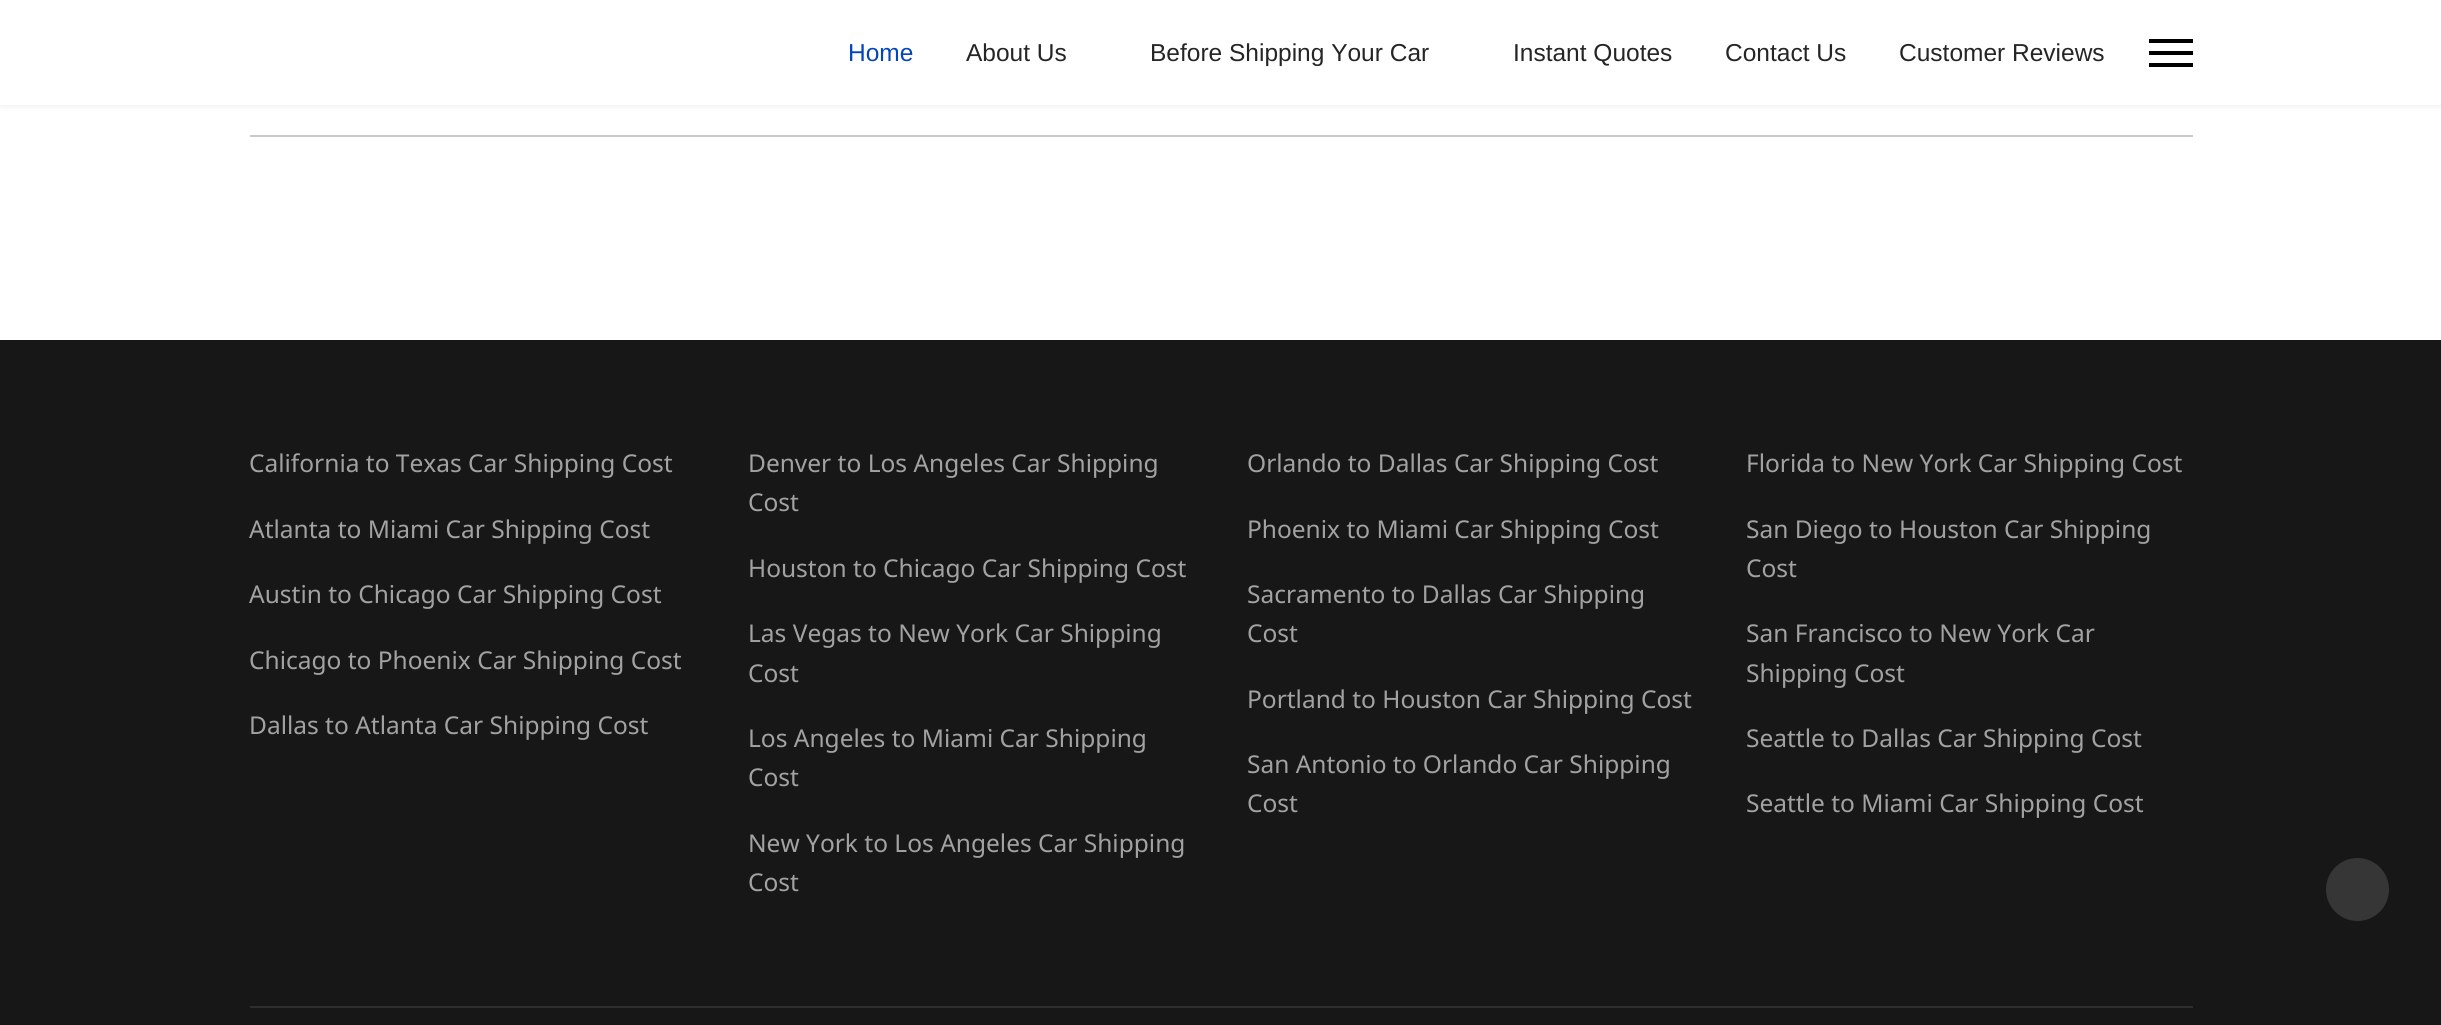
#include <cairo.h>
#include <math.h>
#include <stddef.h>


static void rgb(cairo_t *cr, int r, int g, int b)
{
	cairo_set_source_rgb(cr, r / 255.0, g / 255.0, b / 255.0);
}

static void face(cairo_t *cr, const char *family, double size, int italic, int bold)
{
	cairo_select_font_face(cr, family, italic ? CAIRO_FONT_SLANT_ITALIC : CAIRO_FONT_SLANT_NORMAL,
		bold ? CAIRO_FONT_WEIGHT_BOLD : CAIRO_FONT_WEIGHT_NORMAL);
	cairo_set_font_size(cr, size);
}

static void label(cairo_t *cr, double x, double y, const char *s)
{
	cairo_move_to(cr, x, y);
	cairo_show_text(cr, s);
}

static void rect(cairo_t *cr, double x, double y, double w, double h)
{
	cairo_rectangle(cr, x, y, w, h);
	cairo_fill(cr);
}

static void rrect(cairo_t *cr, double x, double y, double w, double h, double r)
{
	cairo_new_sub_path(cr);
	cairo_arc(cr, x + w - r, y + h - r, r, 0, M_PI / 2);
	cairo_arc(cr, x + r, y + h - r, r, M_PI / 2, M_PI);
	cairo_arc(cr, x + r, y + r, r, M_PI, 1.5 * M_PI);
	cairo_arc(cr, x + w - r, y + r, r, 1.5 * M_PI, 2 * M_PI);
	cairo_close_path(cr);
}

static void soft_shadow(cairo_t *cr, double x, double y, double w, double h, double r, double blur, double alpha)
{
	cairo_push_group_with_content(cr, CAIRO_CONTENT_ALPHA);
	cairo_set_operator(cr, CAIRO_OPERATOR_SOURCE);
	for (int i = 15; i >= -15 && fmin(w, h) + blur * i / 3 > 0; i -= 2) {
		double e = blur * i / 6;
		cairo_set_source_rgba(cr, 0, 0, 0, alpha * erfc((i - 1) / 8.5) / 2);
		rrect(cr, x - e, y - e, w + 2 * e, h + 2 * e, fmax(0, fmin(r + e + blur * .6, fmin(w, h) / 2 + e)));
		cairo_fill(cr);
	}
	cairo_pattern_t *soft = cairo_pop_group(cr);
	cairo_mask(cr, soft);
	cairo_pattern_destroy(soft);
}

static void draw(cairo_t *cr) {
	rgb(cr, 255, 255, 255);
	cairo_paint(cr);
	rgb(cr, 0, 0, 0);
	soft_shadow(cr, 0, 0, 2441, 105, 0, 3.5, 0.1);
	rgb(cr, 255, 255, 255);
	rect(cr, 0, 0, 2441, 105);
	face(cr, "Liberation Sans", 24.5, 0, 0);
	rgb(cr, 3, 69, 191);
	label(cr, 848, 61, "Home");
	rgb(cr, 37, 37, 37);
	label(cr, 966, 61, "About Us");
	label(cr, 1150, 61, "Before Shipping Your Car");
	label(cr, 1513, 61, "Instant Quotes");
	label(cr, 1725, 61, "Contact Us");
	label(cr, 1899, 61, "Customer Reviews");
	rgb(cr, 0, 0, 0);
	rect(cr, 2149, 39, 44, 4);
	rect(cr, 2149, 51, 44, 4);
	rect(cr, 2149, 63, 44, 4);
	rgb(cr, 201, 201, 201);
	rect(cr, 250, 135, 1943, 2);
	rgb(cr, 23, 23, 23);
	rect(cr, 0, 340, 2441, 685);
	face(cr, "Noto Sans", 24.5, 0, 0);
	rgb(cr, 162, 162, 162);
	label(cr, 249, 472, "California to Texas Car Shipping Cost");
	label(cr, 249, 538, "Atlanta to Miami Car Shipping Cost");
	label(cr, 249, 603, "Austin to Chicago Car Shipping Cost");
	label(cr, 249, 669, "Chicago to Phoenix Car Shipping Cost");
	label(cr, 249, 734, "Dallas to Atlanta Car Shipping Cost");
	label(cr, 748, 472, "Denver to Los Angeles Car Shipping");
	label(cr, 748, 511, "Cost");
	label(cr, 748, 577, "Houston to Chicago Car Shipping Cost");
	label(cr, 748, 642, "Las Vegas to New York Car Shipping");
	label(cr, 748, 682, "Cost");
	label(cr, 748, 747, "Los Angeles to Miami Car Shipping");
	label(cr, 748, 786, "Cost");
	label(cr, 748, 852, "New York to Los Angeles Car Shipping");
	label(cr, 748, 891, "Cost");
	label(cr, 1247, 472, "Orlando to Dallas Car Shipping Cost");
	label(cr, 1247, 538, "Phoenix to Miami Car Shipping Cost");
	label(cr, 1247, 603, "Sacramento to Dallas Car Shipping");
	label(cr, 1247, 642, "Cost");
	label(cr, 1247, 708, "Portland to Houston Car Shipping Cost");
	label(cr, 1247, 773, "San Antonio to Orlando Car Shipping");
	label(cr, 1247, 812, "Cost");
	label(cr, 1746, 472, "Florida to New York Car Shipping Cost");
	label(cr, 1746, 538, "San Diego to Houston Car Shipping");
	label(cr, 1746, 577, "Cost");
	label(cr, 1746, 642, "San Francisco to New York Car");
	label(cr, 1746, 682, "Shipping Cost");
	label(cr, 1746, 747, "Seattle to Dallas Car Shipping Cost");
	label(cr, 1746, 812, "Seattle to Miami Car Shipping Cost");
	rgb(cr, 46, 46, 46);
	rect(cr, 250, 1006, 1943, 2);
	rgb(cr, 54, 54, 54);
	cairo_new_path(cr);
	cairo_arc(cr, 2357.5, 889.5, 31.5, 0, 2 * M_PI);
	cairo_fill(cr);
}

int main(void) {
	cairo_surface_t *surface = cairo_image_surface_create(CAIRO_FORMAT_RGB24, 2441, 1025);
	cairo_t *cr = cairo_create(surface);
	cairo_font_options_t *options = cairo_font_options_create();
	cairo_font_options_set_hint_metrics(options, CAIRO_HINT_METRICS_OFF);
	cairo_font_options_set_hint_style(options, CAIRO_HINT_STYLE_NONE);
	cairo_set_font_options(cr, options);
	cairo_set_miter_limit(cr, 4);
	draw(cr);
	cairo_surface_write_to_png(surface, "render.png");
	cairo_font_options_destroy(options);
	cairo_destroy(cr);
	cairo_surface_destroy(surface);
	return 0;
}
